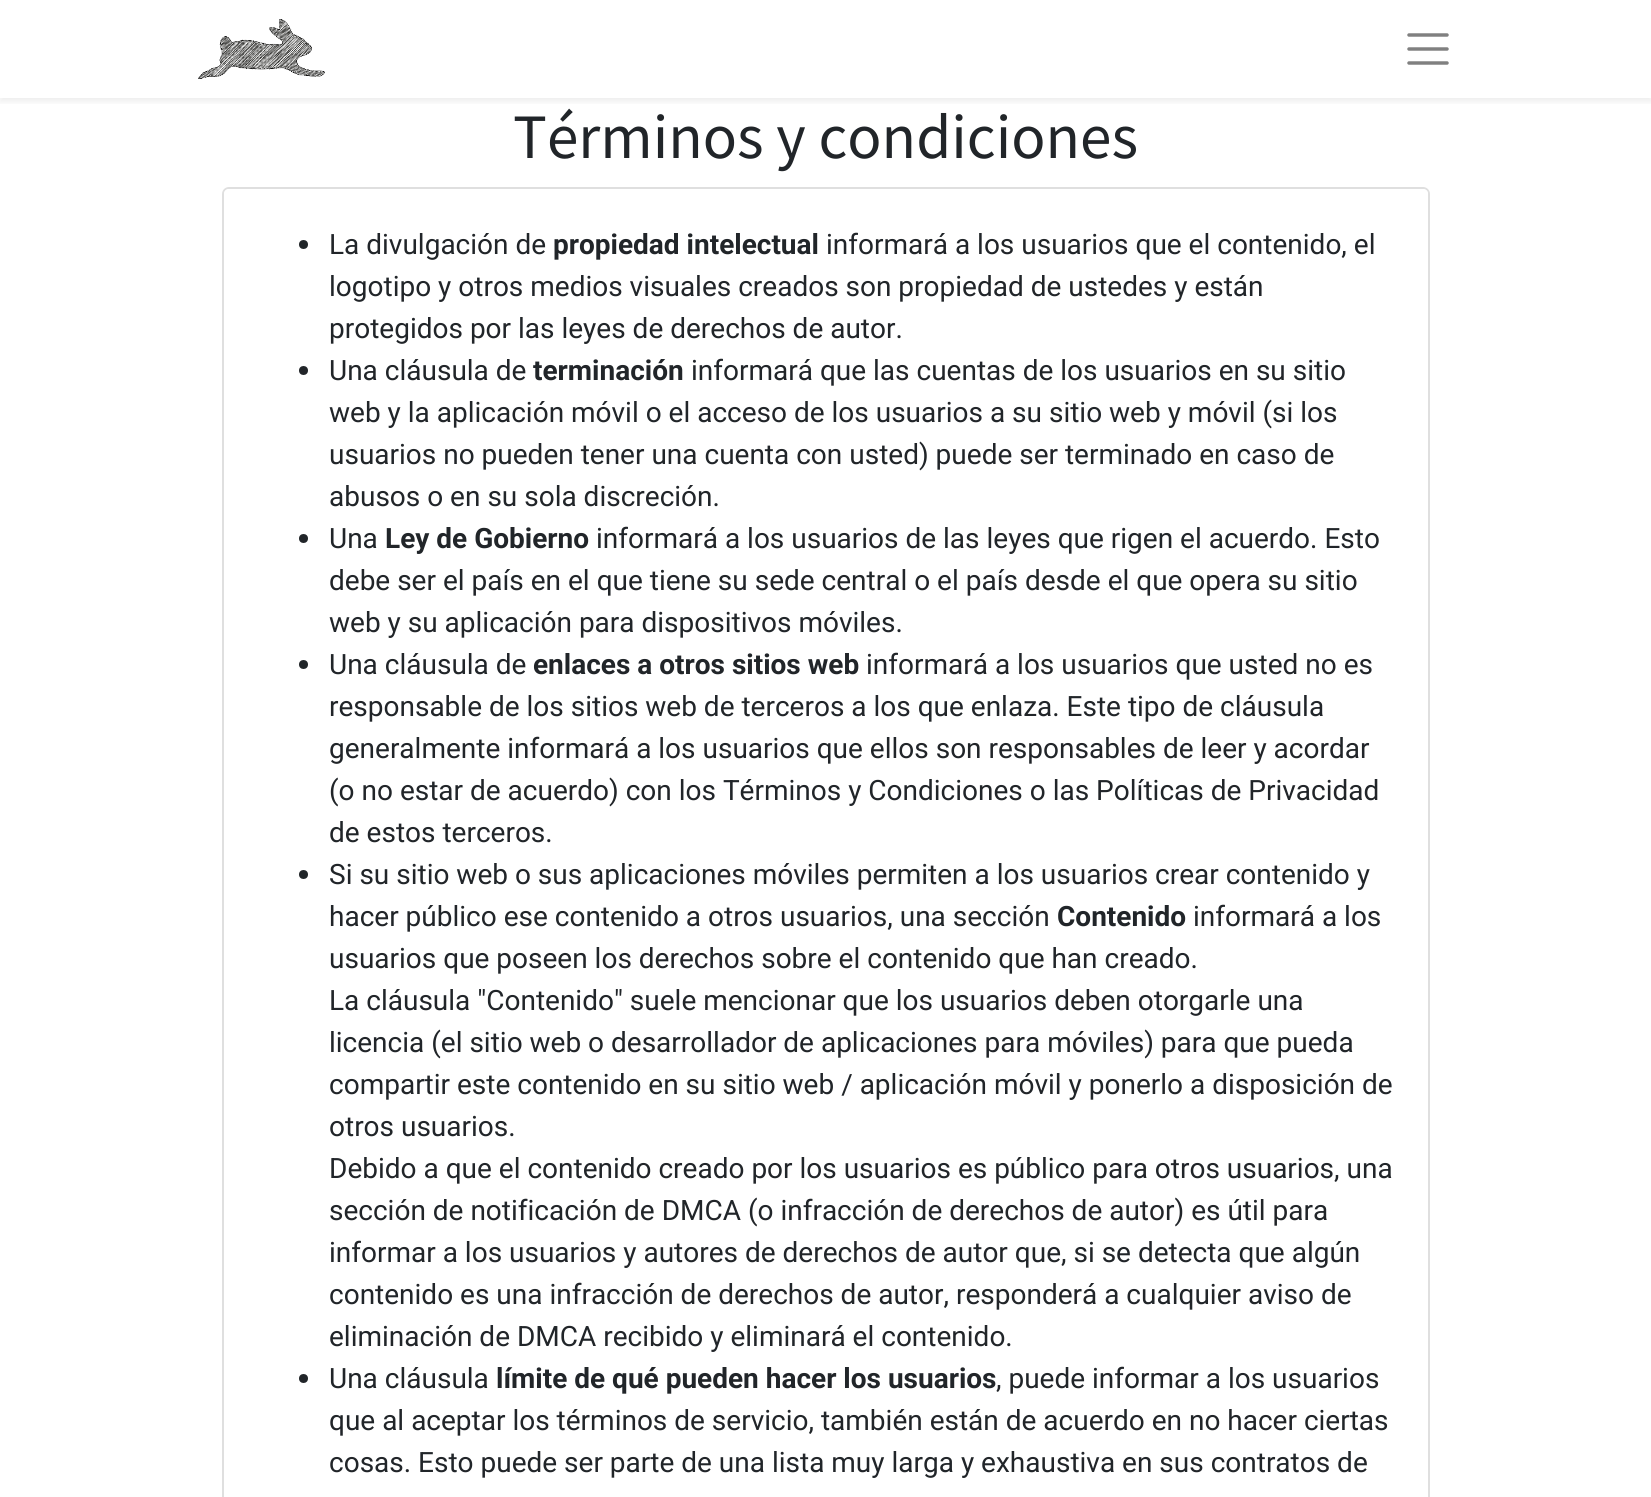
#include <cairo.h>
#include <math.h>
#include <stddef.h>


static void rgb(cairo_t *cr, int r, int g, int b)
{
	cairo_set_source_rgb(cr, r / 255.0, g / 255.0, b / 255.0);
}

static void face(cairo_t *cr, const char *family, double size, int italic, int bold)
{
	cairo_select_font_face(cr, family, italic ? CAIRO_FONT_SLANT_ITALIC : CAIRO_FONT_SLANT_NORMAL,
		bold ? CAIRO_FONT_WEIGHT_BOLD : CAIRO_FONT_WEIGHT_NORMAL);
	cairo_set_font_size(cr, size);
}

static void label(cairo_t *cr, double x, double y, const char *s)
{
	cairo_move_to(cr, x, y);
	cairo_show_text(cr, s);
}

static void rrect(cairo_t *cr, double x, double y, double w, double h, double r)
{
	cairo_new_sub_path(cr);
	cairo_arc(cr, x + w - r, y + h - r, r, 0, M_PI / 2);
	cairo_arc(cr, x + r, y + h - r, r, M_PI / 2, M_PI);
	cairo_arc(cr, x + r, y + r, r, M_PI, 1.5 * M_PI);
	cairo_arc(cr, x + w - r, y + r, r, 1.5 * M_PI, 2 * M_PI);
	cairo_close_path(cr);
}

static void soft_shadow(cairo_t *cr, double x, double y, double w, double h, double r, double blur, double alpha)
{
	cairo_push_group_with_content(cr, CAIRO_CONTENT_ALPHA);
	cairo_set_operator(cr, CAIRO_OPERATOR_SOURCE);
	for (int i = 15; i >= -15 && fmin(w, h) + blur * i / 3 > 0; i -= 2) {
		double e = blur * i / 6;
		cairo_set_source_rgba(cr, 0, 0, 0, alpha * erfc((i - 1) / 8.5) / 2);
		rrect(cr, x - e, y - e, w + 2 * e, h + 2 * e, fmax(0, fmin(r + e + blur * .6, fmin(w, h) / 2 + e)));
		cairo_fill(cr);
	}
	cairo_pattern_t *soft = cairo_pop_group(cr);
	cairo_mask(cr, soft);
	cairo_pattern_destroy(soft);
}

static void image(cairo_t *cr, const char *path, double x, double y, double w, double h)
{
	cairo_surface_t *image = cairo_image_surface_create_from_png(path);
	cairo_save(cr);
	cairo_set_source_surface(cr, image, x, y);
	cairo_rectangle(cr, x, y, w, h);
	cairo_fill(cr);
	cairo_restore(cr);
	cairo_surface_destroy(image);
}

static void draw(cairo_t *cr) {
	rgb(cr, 255, 255, 255);
	cairo_paint(cr);
	cairo_save(cr);
	cairo_rectangle(cr, 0, 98, 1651, 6);
	cairo_clip(cr);
	rgb(cr, 0, 0, 0);
	soft_shadow(cr, 0, 4, 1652, 98, 0, 3.5, 0.07);
	cairo_restore(cr);
	image(cr, "image0.png", 198, 19, 127, 60);
	cairo_new_path(cr);
	cairo_move_to(cr, 1409, 35);
	cairo_line_to(cr, 1447, 35);
	cairo_move_to(cr, 1409, 49);
	cairo_line_to(cr, 1447, 49);
	cairo_move_to(cr, 1409, 63);
	cairo_line_to(cr, 1447, 63);
	rgb(cr, 128, 128, 128);
	cairo_set_line_width(cr, 3.5);
	cairo_set_line_cap(cr, CAIRO_LINE_CAP_ROUND);
	cairo_stroke(cr);
	face(cr, "Source Sans Pro", 63.25, 0, 0);
	rgb(cr, 33, 37, 41);
	label(cr, 513, 158, "Términos y condiciones");
	rrect(cr, 223, 188, 1206, 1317, 6);
	rgb(cr, 223, 223, 223);
	cairo_set_line_width(cr, 2);
	cairo_set_line_cap(cr, CAIRO_LINE_CAP_BUTT);
	cairo_stroke(cr);
	cairo_set_source_rgba(cr, 1, 1, 1, 0.9);
	cairo_new_path(cr);
	cairo_move_to(cr, 229, 189);
	cairo_line_to(cr, 1423, 189);
	cairo_curve_to(cr, 1426, 189, 1428, 191, 1428, 194);
	cairo_line_to(cr, 1428, 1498);
	cairo_line_to(cr, 224, 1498);
	cairo_line_to(cr, 224, 194);
	cairo_curve_to(cr, 224, 191, 226, 189, 229, 189);
	cairo_close_path(cr);
	cairo_fill(cr);
	rgb(cr, 33, 37, 41);
	cairo_arc(cr, 303.5, 244.5, 4.5, 0, 2 * M_PI);
	cairo_fill(cr);
	face(cr, "Roboto", 28, 0, 0);
	label(cr, 329, 254, "La divulgación de");
	face(cr, "Roboto", 28, 0, 1);
	label(cr, 553, 254, "propiedad intelectual");
	face(cr, "Roboto", 28, 0, 0);
	label(cr, 826, 254, "informará a los usuarios que el contenido, el");
	label(cr, 329, 296, "logotipo y otros medios visuales creados son propiedad de ustedes y están");
	label(cr, 329, 338, "protegidos por las leyes de derechos de autor.");
	cairo_new_path(cr);
	cairo_arc(cr, 303.5, 370.5, 4.5, 0, 2 * M_PI);
	cairo_fill(cr);
	label(cr, 329, 380, "Una cláusula de");
	face(cr, "Roboto", 28, 0, 1);
	label(cr, 533, 380, "terminación");
	face(cr, "Roboto", 28, 0, 0);
	label(cr, 691, 380, "informará que las cuentas de los usuarios en su sitio");
	label(cr, 329, 422, "web y la aplicación móvil o el acceso de los usuarios a su sitio web y móvil (si los");
	label(cr, 329, 464, "usuarios no pueden tener una cuenta con usted) puede ser terminado en caso de");
	label(cr, 329, 506, "abusos o en su sola discreción.");
	cairo_new_path(cr);
	cairo_arc(cr, 303.5, 538.5, 4.5, 0, 2 * M_PI);
	cairo_fill(cr);
	label(cr, 329, 548, "Una");
	face(cr, "Roboto", 28, 0, 1);
	label(cr, 385, 548, "Ley de Gobierno");
	face(cr, "Roboto", 28, 0, 0);
	label(cr, 596, 548, "informará a los usuarios de las leyes que rigen el acuerdo. Esto");
	label(cr, 329, 590, "debe ser el país en el que tiene su sede central o el país desde el que opera su sitio");
	label(cr, 329, 632, "web y su aplicación para dispositivos móviles.");
	cairo_new_path(cr);
	cairo_arc(cr, 303.5, 664.5, 4.5, 0, 2 * M_PI);
	cairo_fill(cr);
	label(cr, 329, 674, "Una cláusula de");
	face(cr, "Roboto", 28, 0, 1);
	label(cr, 533, 674, "enlaces a otros sitios web");
	face(cr, "Roboto", 28, 0, 0);
	label(cr, 866, 674, "informará a los usuarios que usted no es");
	label(cr, 329, 716, "responsable de los sitios web de terceros a los que enlaza. Este tipo de cláusula");
	label(cr, 329, 758, "generalmente informará a los usuarios que ellos son responsables de leer y acordar");
	label(cr, 329, 800, "(o no estar de acuerdo) con los Términos y Condiciones o las Políticas de Privacidad");
	label(cr, 329, 842, "de estos terceros.");
	cairo_new_path(cr);
	cairo_arc(cr, 303.5, 874.5, 4.5, 0, 2 * M_PI);
	cairo_fill(cr);
	label(cr, 329, 884, "Si su sitio web o sus aplicaciones móviles permiten a los usuarios crear contenido y");
	label(cr, 329, 926, "hacer público ese contenido a otros usuarios, una sección");
	face(cr, "Roboto", 28, 0, 1);
	label(cr, 1057, 926, "Contenido");
	face(cr, "Roboto", 28, 0, 0);
	label(cr, 1193, 926, "informará a los");
	label(cr, 329, 968, "usuarios que poseen los derechos sobre el contenido que han creado.");
	label(cr, 329, 1010, "La cláusula \"Contenido\" suele mencionar que los usuarios deben otorgarle una");
	label(cr, 329, 1052, "licencia (el sitio web o desarrollador de aplicaciones para móviles) para que pueda");
	label(cr, 329, 1094, "compartir este contenido en su sitio web / aplicación móvil y ponerlo a disposición de");
	label(cr, 329, 1136, "otros usuarios.");
	label(cr, 329, 1178, "Debido a que el contenido creado por los usuarios es público para otros usuarios, una");
	label(cr, 329, 1220, "sección de notificación de DMCA (o infracción de derechos de autor) es útil para");
	label(cr, 329, 1262, "informar a los usuarios y autores de derechos de autor que, si se detecta que algún");
	label(cr, 329, 1304, "contenido es una infracción de derechos de autor, responderá a cualquier aviso de");
	label(cr, 329, 1346, "eliminación de DMCA recibido y eliminará el contenido.");
	cairo_new_path(cr);
	cairo_arc(cr, 303.5, 1378.5, 4.5, 0, 2 * M_PI);
	cairo_fill(cr);
	label(cr, 329, 1388, "Una cláusula");
	face(cr, "Roboto", 28, 0, 1);
	label(cr, 496, 1388, "límite de qué pueden hacer los usuarios");
	face(cr, "Roboto", 28, 0, 0);
	label(cr, 996, 1388, ", puede informar a los usuarios");
	label(cr, 329, 1430, "que al aceptar los términos de servicio, también están de acuerdo en no hacer ciertas");
	label(cr, 329, 1472, "cosas. Esto puede ser parte de una lista muy larga y exhaustiva en sus contratos de");
}

int main(void) {
	cairo_surface_t *surface = cairo_image_surface_create(CAIRO_FORMAT_RGB24, 1651, 1497);
	cairo_t *cr = cairo_create(surface);
	cairo_font_options_t *options = cairo_font_options_create();
	cairo_font_options_set_hint_metrics(options, CAIRO_HINT_METRICS_OFF);
	cairo_font_options_set_hint_style(options, CAIRO_HINT_STYLE_NONE);
	cairo_set_font_options(cr, options);
	cairo_set_miter_limit(cr, 4);
	draw(cr);
	cairo_surface_write_to_png(surface, "render.png");
	cairo_font_options_destroy(options);
	cairo_destroy(cr);
	cairo_surface_destroy(surface);
	return 0;
}
